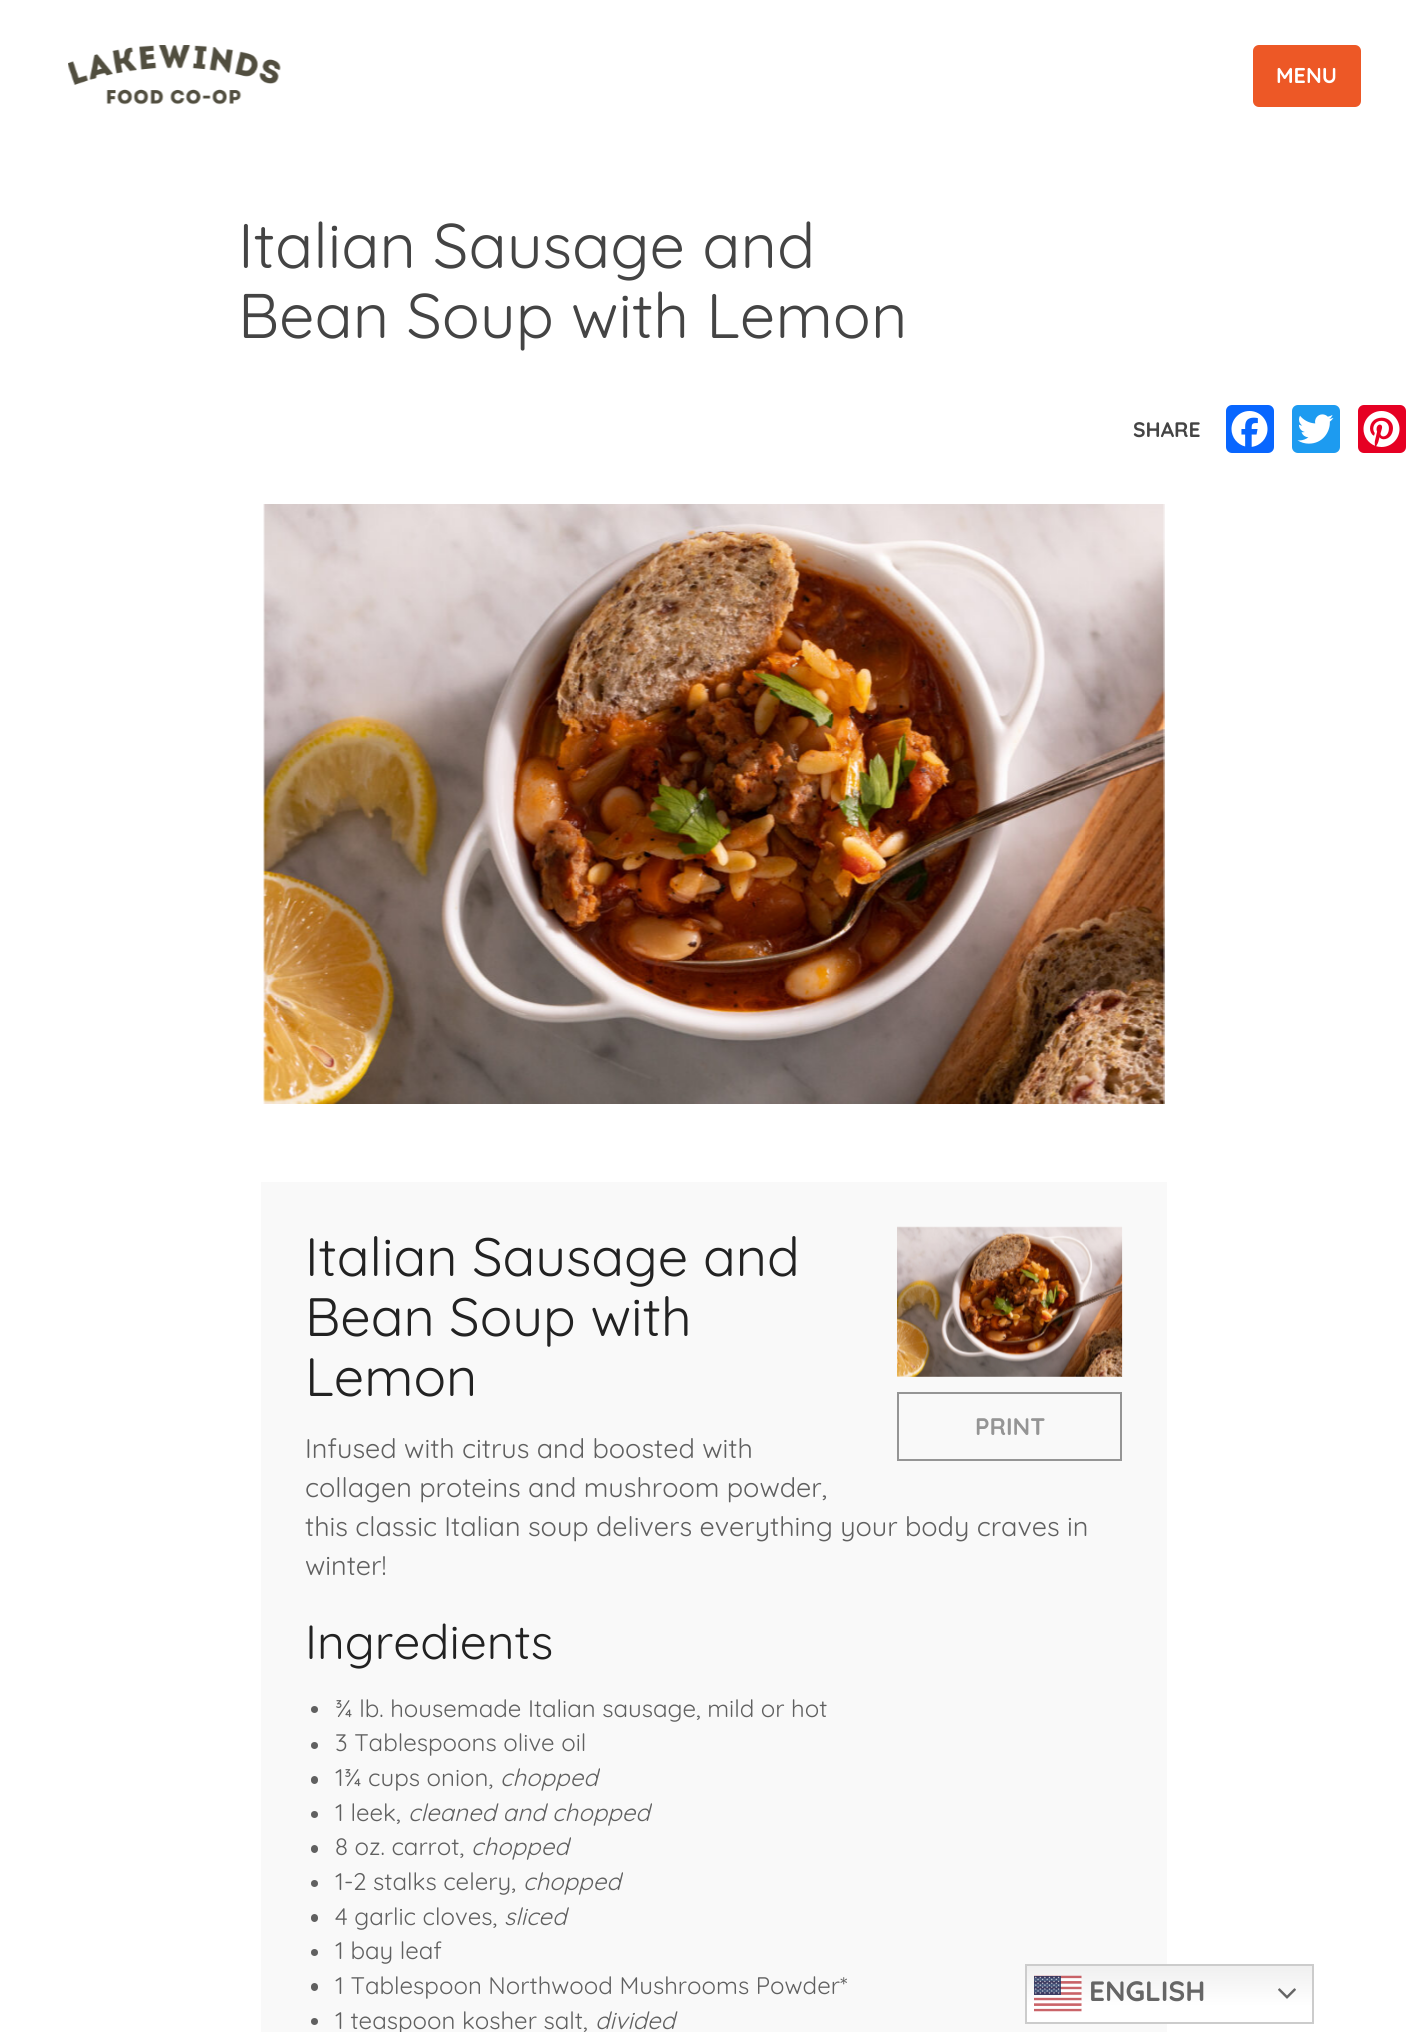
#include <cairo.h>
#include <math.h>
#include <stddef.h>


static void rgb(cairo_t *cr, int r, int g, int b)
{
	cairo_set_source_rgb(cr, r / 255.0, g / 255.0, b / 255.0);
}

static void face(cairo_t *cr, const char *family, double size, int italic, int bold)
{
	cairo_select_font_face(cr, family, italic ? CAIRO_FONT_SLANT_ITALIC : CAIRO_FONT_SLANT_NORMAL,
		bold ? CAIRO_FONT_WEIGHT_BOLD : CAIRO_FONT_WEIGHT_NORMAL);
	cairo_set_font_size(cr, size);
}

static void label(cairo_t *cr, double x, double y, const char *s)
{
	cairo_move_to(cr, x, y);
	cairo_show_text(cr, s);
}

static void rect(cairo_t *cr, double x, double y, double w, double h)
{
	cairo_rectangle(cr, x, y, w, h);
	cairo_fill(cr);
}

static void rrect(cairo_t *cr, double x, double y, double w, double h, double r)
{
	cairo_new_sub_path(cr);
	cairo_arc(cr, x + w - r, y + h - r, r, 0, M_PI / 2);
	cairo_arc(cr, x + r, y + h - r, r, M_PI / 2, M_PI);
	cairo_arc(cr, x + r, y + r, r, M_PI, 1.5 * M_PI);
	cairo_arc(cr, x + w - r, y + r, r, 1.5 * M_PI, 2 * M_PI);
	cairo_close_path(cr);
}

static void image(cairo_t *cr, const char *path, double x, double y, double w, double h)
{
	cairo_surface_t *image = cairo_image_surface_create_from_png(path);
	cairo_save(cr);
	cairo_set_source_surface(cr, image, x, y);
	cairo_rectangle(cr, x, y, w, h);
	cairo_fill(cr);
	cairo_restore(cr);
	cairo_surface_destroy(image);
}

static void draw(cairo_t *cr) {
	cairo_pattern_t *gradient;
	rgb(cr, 255, 255, 255);
	cairo_paint(cr);
	image(cr, "image0.png", 68, 45, 213, 60);
	rgb(cr, 237, 88, 38);
	rrect(cr, 1253, 45, 108, 62, 6);
	cairo_fill(cr);
	face(cr, "Quicksand", 21.5, 0, 1);
	rgb(cr, 255, 255, 255);
	label(cr, 1276, 83, "MENU");
	face(cr, "Quicksand", 63, 0, 0);
	rgb(cr, 68, 68, 68);
	label(cr, 238, 268, "Italian Sausage and");
	label(cr, 238, 338, "Bean Soup with Lemon");
	face(cr, "Quicksand", 21, 0, 1);
	label(cr, 1133, 437, "SHARE");
	rgb(cr, 8, 102, 255);
	rrect(cr, 1226, 405, 48, 48, 6);
	cairo_fill(cr);
	image(cr, "image1.png", 1231, 411, 37, 36);
	rgb(cr, 29, 155, 240);
	rrect(cr, 1292, 405, 48, 48, 6);
	cairo_fill(cr);
	image(cr, "image2.png", 1297, 414, 37, 30);
	rgb(cr, 230, 0, 35);
	rrect(cr, 1358, 405, 48, 48, 6);
	cairo_fill(cr);
	image(cr, "image3.png", 1363, 411, 37, 36);
	image(cr, "image4.png", 263, 504, 902, 600);
	rgb(cr, 249, 249, 249);
	rect(cr, 261, 1182, 906, 850);
	face(cr, "Quicksand", 54, 0, 0);
	rgb(cr, 34, 34, 34);
	label(cr, 305, 1276, "Italian Sausage and");
	label(cr, 305, 1336, "Bean Soup with");
	label(cr, 305, 1396, "Lemon");
	image(cr, "image5.png", 897, 1226, 226, 151);
	cairo_rectangle(cr, 898, 1393, 223, 67);
	rgb(cr, 149, 149, 149);
	cairo_stroke(cr);
	face(cr, "Quicksand", 24, 0, 1);
	label(cr, 975, 1435, "PRINT");
	face(cr, "Quicksand", 27, 0, 0);
	rgb(cr, 96, 96, 96);
	label(cr, 305, 1458, "Infused with citrus and boosted with");
	label(cr, 305, 1497, "collagen proteins and mushroom powder,");
	label(cr, 305, 1536, "this classic Italian soup delivers everything your body craves in");
	label(cr, 305, 1575, "winter!");
	face(cr, "Quicksand", 48, 0, 0);
	rgb(cr, 34, 34, 34);
	label(cr, 305, 1659, "Ingredients");
	rgb(cr, 96, 96, 96);
	cairo_new_path(cr);
	cairo_arc(cr, 314.5, 1709.5, 3.5, 0, 2 * M_PI);
	cairo_fill(cr);
	face(cr, "Quicksand", 24, 0, 0);
	label(cr, 335, 1717, "¾ lb. housemade Italian sausage, mild or hot");
	cairo_new_path(cr);
	cairo_arc(cr, 314.5, 1745.5, 3.5, 0, 2 * M_PI);
	cairo_fill(cr);
	label(cr, 335, 1751, "3 Tablespoons olive oil");
	rrect(cr, 311, 1776, 7, 8, 3.5);
	cairo_fill(cr);
	label(cr, 335, 1786, "1¾ cups onion,");
	face(cr, "Quicksand", 24, 1, 0);
	label(cr, 500, 1786, "chopped");
	cairo_new_path(cr);
	cairo_arc(cr, 314.5, 1814.5, 3.5, 0, 2 * M_PI);
	cairo_fill(cr);
	face(cr, "Quicksand", 24, 0, 0);
	label(cr, 335, 1821, "1 leek,");
	face(cr, "Quicksand", 24, 1, 0);
	label(cr, 408, 1821, "cleaned and chopped");
	rrect(cr, 311, 1845, 7, 8, 3.5);
	cairo_fill(cr);
	face(cr, "Quicksand", 24, 0, 0);
	label(cr, 335, 1855, "8 oz. carrot,");
	face(cr, "Quicksand", 24, 1, 0);
	label(cr, 471, 1855, "chopped");
	cairo_new_path(cr);
	cairo_arc(cr, 314.5, 1883.5, 3.5, 0, 2 * M_PI);
	cairo_fill(cr);
	face(cr, "Quicksand", 24, 0, 0);
	label(cr, 335, 1890, "1-2 stalks celery,");
	face(cr, "Quicksand", 24, 1, 0);
	label(cr, 523, 1890, "chopped");
	rrect(cr, 311, 1914, 7, 8, 3.5);
	cairo_fill(cr);
	face(cr, "Quicksand", 24, 0, 0);
	label(cr, 335, 1925, "4 garlic cloves,");
	face(cr, "Quicksand", 24, 1, 0);
	label(cr, 504, 1925, "sliced");
	cairo_new_path(cr);
	cairo_arc(cr, 314.5, 1952.5, 3.5, 0, 2 * M_PI);
	cairo_fill(cr);
	face(cr, "Quicksand", 24, 0, 0);
	label(cr, 335, 1959, "1 bay leaf");
	rrect(cr, 311, 1983, 7, 8, 3.5);
	cairo_fill(cr);
	label(cr, 335, 1994, "1 Tablespoon Northwood Mushrooms Powder*");
	cairo_new_path(cr);
	cairo_arc(cr, 314.5, 2021.5, 3.5, 0, 2 * M_PI);
	cairo_fill(cr);
	label(cr, 335, 2029, "1 teaspoon kosher salt,");
	face(cr, "Quicksand", 24, 1, 0);
	label(cr, 595, 2029, "divided");
	gradient = cairo_pattern_create_linear(1169, 1964, 1169, 2024);
	cairo_pattern_add_color_stop_rgba(gradient, 0, 0.937, 0.937, 0.937, 1);
	cairo_pattern_add_color_stop_rgba(gradient, 0.7, 1, 1, 1, 1);
	cairo_set_source(cr, gradient);
	cairo_pattern_destroy(gradient);
	rect(cr, 1027, 1966, 285, 56);
	cairo_rectangle(cr, 1026, 1965, 287, 58);
	rgb(cr, 204, 204, 204);
	cairo_stroke(cr);
	image(cr, "image6.png", 1034, 1975, 48, 37);
	face(cr, "Quicksand", 28, 0, 1);
	rgb(cr, 102, 102, 102);
	label(cr, 1089, 2001, "ENGLISH");
	image(cr, "image7.png", 1278, 1988, 18, 11);
}

int main(void) {
	cairo_surface_t *surface = cairo_image_surface_create(CAIRO_FORMAT_RGB24, 1428, 2032);
	cairo_t *cr = cairo_create(surface);
	cairo_font_options_t *options = cairo_font_options_create();
	cairo_font_options_set_hint_metrics(options, CAIRO_HINT_METRICS_OFF);
	cairo_font_options_set_hint_style(options, CAIRO_HINT_STYLE_NONE);
	cairo_set_font_options(cr, options);
	cairo_set_miter_limit(cr, 4);
	draw(cr);
	cairo_surface_write_to_png(surface, "render.png");
	cairo_font_options_destroy(options);
	cairo_destroy(cr);
	cairo_surface_destroy(surface);
	return 0;
}
